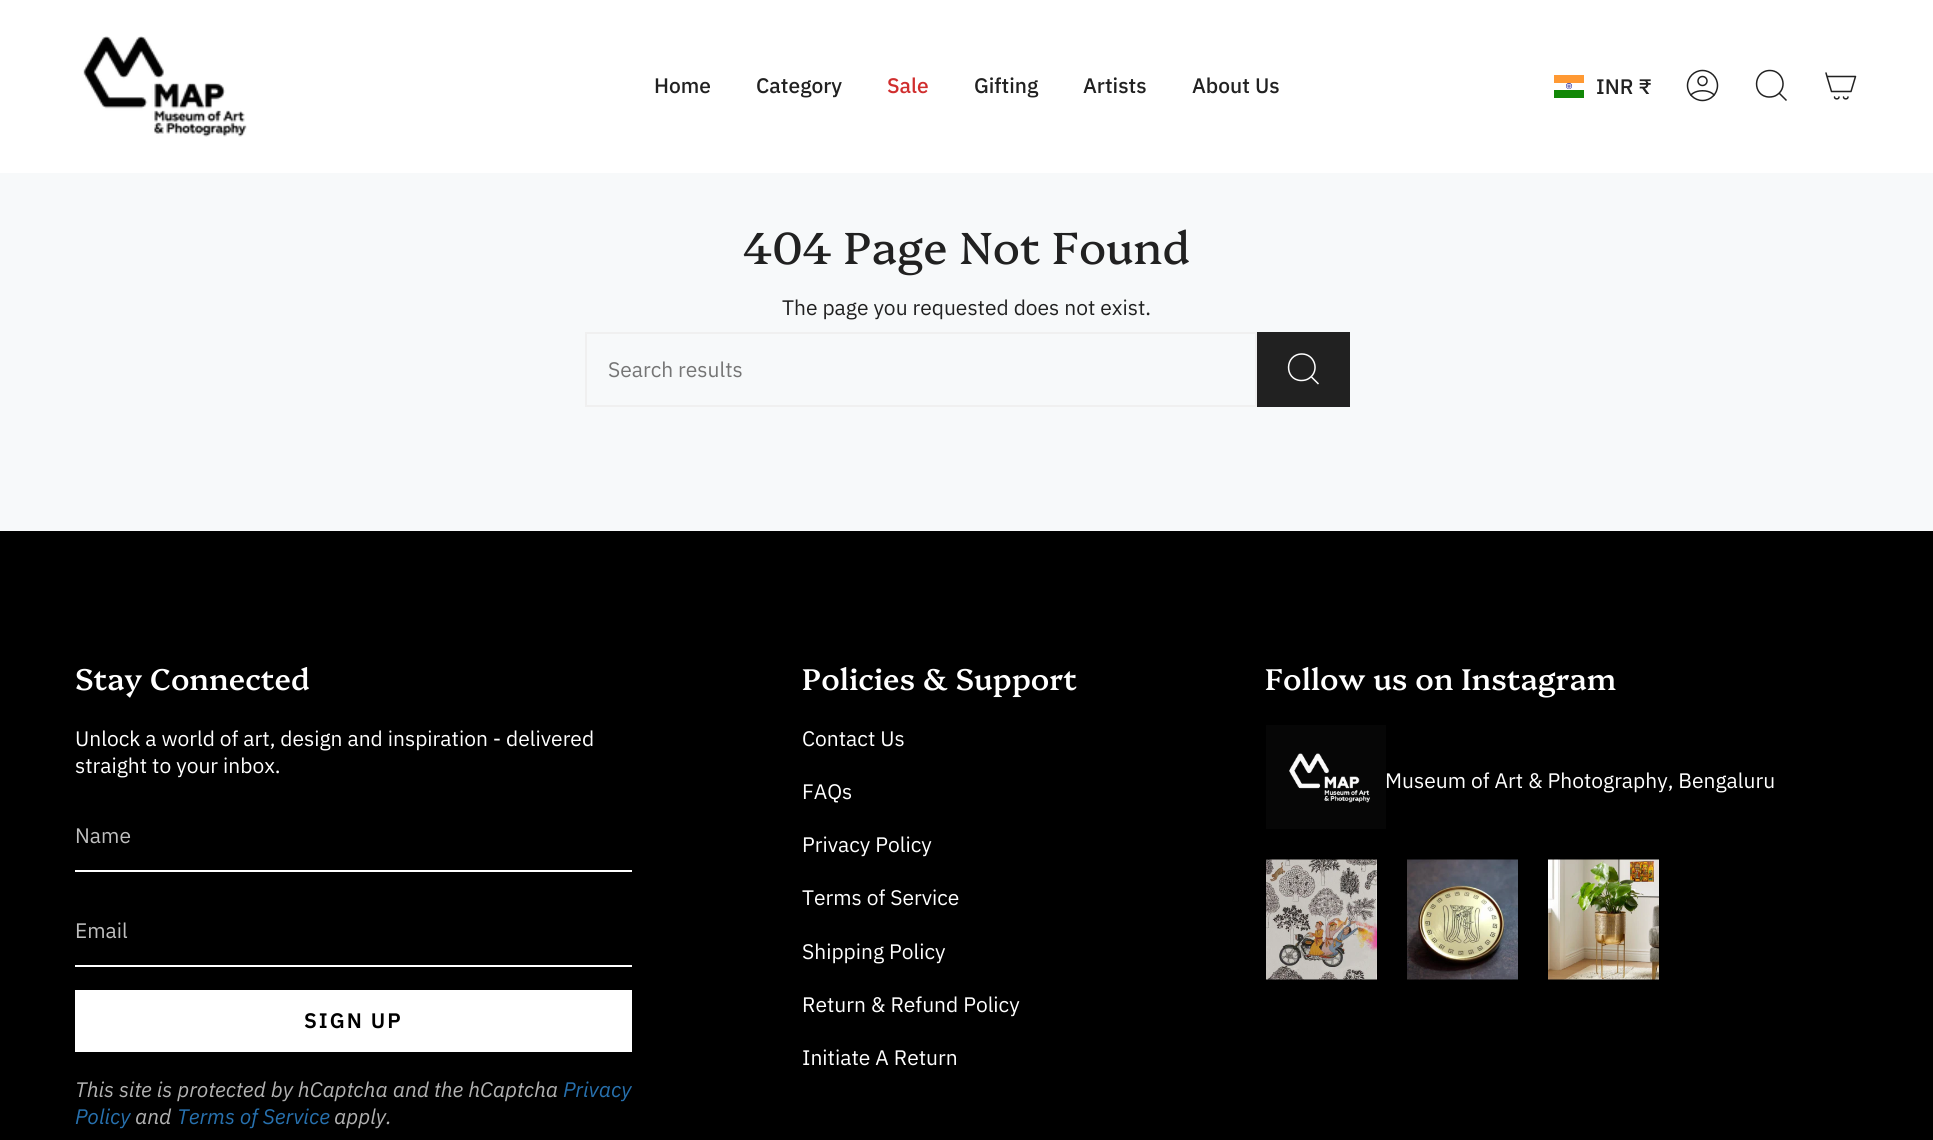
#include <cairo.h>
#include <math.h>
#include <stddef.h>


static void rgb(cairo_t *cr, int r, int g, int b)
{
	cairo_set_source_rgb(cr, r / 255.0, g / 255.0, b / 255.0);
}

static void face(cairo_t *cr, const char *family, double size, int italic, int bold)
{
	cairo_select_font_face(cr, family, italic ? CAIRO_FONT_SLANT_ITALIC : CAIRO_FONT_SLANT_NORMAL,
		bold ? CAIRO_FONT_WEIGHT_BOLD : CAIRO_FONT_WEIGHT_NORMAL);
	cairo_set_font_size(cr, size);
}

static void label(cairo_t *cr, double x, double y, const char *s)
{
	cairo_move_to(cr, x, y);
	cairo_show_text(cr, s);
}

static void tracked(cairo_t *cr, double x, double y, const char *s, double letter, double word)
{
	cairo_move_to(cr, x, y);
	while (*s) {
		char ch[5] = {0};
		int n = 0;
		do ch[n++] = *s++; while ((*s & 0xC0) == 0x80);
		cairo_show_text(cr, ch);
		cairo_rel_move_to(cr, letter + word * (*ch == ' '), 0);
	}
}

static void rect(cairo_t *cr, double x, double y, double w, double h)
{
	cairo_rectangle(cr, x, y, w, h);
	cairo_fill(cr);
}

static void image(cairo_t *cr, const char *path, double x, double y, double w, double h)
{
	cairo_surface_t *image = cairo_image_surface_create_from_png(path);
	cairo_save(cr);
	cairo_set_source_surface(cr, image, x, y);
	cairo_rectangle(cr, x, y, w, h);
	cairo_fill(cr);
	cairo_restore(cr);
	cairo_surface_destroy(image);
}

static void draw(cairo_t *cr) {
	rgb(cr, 247, 249, 250);
	cairo_paint(cr);
	rgb(cr, 255, 255, 255);
	rect(cr, 0, 0, 1933, 173);
	image(cr, "image0.png", 83, 36, 164, 101);
	face(cr, "IBM Plex Sans Medium", 21, 0, 0);
	rgb(cr, 33, 33, 33);
	label(cr, 654, 93, "Home");
	label(cr, 756, 93, "Category");
	rgb(cr, 208, 46, 46);
	label(cr, 887, 93, "Sale");
	rgb(cr, 33, 33, 33);
	label(cr, 974, 93, "Gifting");
	label(cr, 1083, 93, "Artists");
	label(cr, 1192, 93, "About Us");
	image(cr, "image1.png", 1554, 75, 30, 23);
	label(cr, 1596, 94, "INR ₹");
	image(cr, "image2.png", 1686, 69, 33, 33);
	cairo_new_path(cr);
	cairo_move_to(cr, 1770, 70.5);
	cairo_curve_to(cr, 1782.5, 70.5, 1788, 87, 1777.5, 94.5);
	cairo_curve_to(cr, 1775, 96.5, 1772, 97, 1769, 97);
	cairo_curve_to(cr, 1752, 96.5, 1752.5, 70.5, 1770, 70.5);
	cairo_close_path(cr);
	cairo_move_to(cr, 1779, 93);
	cairo_line_to(cr, 1786.5, 100.5);
	cairo_set_line_width(cr, 1.5);
	cairo_stroke(cr);
	cairo_new_path(cr);
	cairo_move_to(cr, 1827, 76.5);
	cairo_line_to(cr, 1855.5, 76.5);
	cairo_line_to(cr, 1851, 91.5);
	cairo_line_to(cr, 1831.5, 91.5);
	cairo_close_path(cr);
	cairo_move_to(cr, 1827, 76.5);
	cairo_line_to(cr, 1826, 73);
	cairo_move_to(cr, 1839, 97);
	cairo_curve_to(cr, 1839, 99.5, 1834.5, 99.5, 1834.5, 97);
	cairo_move_to(cr, 1848, 97);
	cairo_curve_to(cr, 1848, 99.5, 1843.5, 99.5, 1843.5, 97);
	cairo_set_line_cap(cr, CAIRO_LINE_CAP_ROUND);
	cairo_set_line_join(cr, CAIRO_LINE_JOIN_ROUND);
	cairo_stroke(cr);
	face(cr, "Platypi", 45, 0, 0);
	label(cr, 743, 264, "404 Page Not Found");
	face(cr, "IBM Plex Sans", 21, 0, 0);
	label(cr, 782, 315, "The page you requested does not exist.");
	cairo_rectangle(cr, 586, 333, 670, 73);
	rgb(cr, 240, 240, 240);
	cairo_set_line_width(cr, 2);
	cairo_set_line_cap(cr, CAIRO_LINE_CAP_BUTT);
	cairo_set_line_join(cr, CAIRO_LINE_JOIN_MITER);
	cairo_stroke(cr);
	rgb(cr, 117, 117, 117);
	label(cr, 608, 377, "Search results");
	rgb(cr, 33, 33, 33);
	rect(cr, 1257, 332, 93, 75);
	cairo_new_path(cr);
	cairo_move_to(cr, 1302, 354);
	cairo_curve_to(cr, 1314.5, 354, 1320, 370.5, 1309.5, 378);
	cairo_curve_to(cr, 1307, 380, 1304, 380.5, 1301, 380.5);
	cairo_curve_to(cr, 1284, 380, 1284.5, 354, 1302, 354);
	cairo_close_path(cr);
	cairo_move_to(cr, 1311, 376.5);
	cairo_line_to(cr, 1318.5, 384);
	rgb(cr, 255, 255, 255);
	cairo_set_line_width(cr, 1.5);
	cairo_stroke(cr);
	rgb(cr, 0, 0, 0);
	rect(cr, 0, 531, 1933, 609);
	face(cr, "Platypi Medium", 30, 0, 0);
	rgb(cr, 255, 255, 255);
	label(cr, 75, 690, "Stay Connected");
	face(cr, "IBM Plex Sans", 21, 0, 0);
	label(cr, 75, 746, "Unlock a world of art, design and inspiration - delivered");
	label(cr, 75, 773, "straight to your inbox.");
	rect(cr, 75, 870, 557, 2);
	rgb(cr, 191, 191, 191);
	label(cr, 75, 843, "Name");
	rgb(cr, 255, 255, 255);
	rect(cr, 75, 965, 557, 2);
	rgb(cr, 191, 191, 191);
	label(cr, 75, 938, "Email");
	rgb(cr, 255, 255, 255);
	rect(cr, 75, 990, 557, 62);
	face(cr, "IBM Plex Sans SemiBold", 21, 0, 0);
	rgb(cr, 0, 0, 0);
	tracked(cr, 304, 1028, "SIGN UP", 2, 0);
	face(cr, "IBM Plex Sans", 21, 1, 0);
	rgb(cr, 179, 179, 179);
	label(cr, 75, 1097, "This site is protected by hCaptcha and the hCaptcha");
	rgb(cr, 39, 113, 175);
	label(cr, 563, 1097, "Privacy");
	label(cr, 75, 1124, "Policy");
	rgb(cr, 179, 179, 179);
	label(cr, 135, 1124, "and");
	rgb(cr, 39, 113, 175);
	label(cr, 177, 1124, "Terms of Service");
	rgb(cr, 179, 179, 179);
	label(cr, 334, 1124, "apply.");
	face(cr, "Platypi Medium", 30, 0, 0);
	rgb(cr, 255, 255, 255);
	label(cr, 802, 690, "Policies & Support");
	face(cr, "IBM Plex Sans", 21, 0, 0);
	label(cr, 802, 746, "Contact Us");
	label(cr, 802, 799, "FAQs");
	label(cr, 802, 852, "Privacy Policy");
	label(cr, 802, 905, "Terms of Service");
	label(cr, 802, 959, "Shipping Policy");
	label(cr, 802, 1012, "Return & Refund Policy");
	label(cr, 802, 1065, "Initiate A Return");
	face(cr, "Platypi Medium", 30, 0, 0);
	label(cr, 1265, 690, "Follow us on Instagram");
	image(cr, "image3.png", 1266, 725, 120, 104);
	face(cr, "IBM Plex Sans", 21, 0, 0);
	label(cr, 1385, 788, "Museum of Art & Photography, Bengaluru");
	image(cr, "image4.png", 1266, 859, 111, 121);
	image(cr, "image5.png", 1407, 859, 111, 121);
	image(cr, "image6.png", 1548, 859, 111, 121);
}

int main(void) {
	cairo_surface_t *surface = cairo_image_surface_create(CAIRO_FORMAT_RGB24, 1933, 1140);
	cairo_t *cr = cairo_create(surface);
	cairo_font_options_t *options = cairo_font_options_create();
	cairo_font_options_set_hint_metrics(options, CAIRO_HINT_METRICS_OFF);
	cairo_font_options_set_hint_style(options, CAIRO_HINT_STYLE_NONE);
	cairo_set_font_options(cr, options);
	cairo_set_miter_limit(cr, 4);
	draw(cr);
	cairo_surface_write_to_png(surface, "render.png");
	cairo_font_options_destroy(options);
	cairo_destroy(cr);
	cairo_surface_destroy(surface);
	return 0;
}
